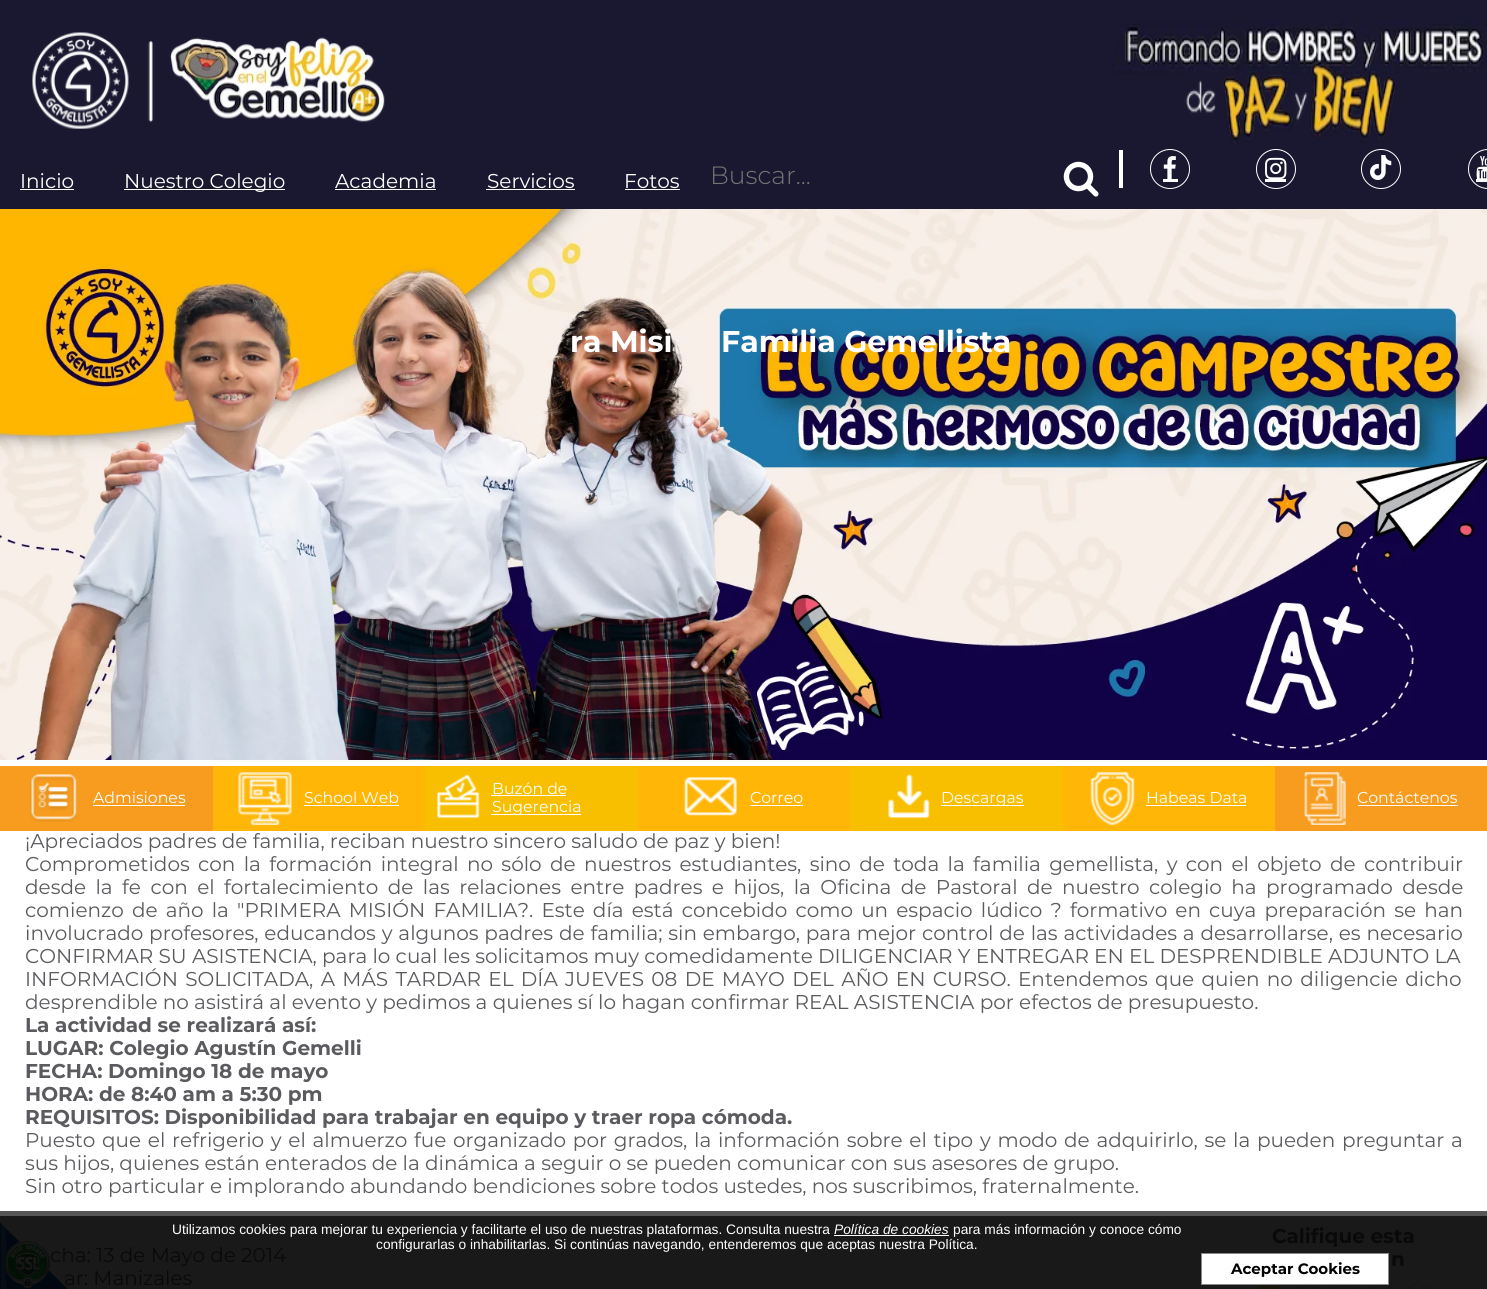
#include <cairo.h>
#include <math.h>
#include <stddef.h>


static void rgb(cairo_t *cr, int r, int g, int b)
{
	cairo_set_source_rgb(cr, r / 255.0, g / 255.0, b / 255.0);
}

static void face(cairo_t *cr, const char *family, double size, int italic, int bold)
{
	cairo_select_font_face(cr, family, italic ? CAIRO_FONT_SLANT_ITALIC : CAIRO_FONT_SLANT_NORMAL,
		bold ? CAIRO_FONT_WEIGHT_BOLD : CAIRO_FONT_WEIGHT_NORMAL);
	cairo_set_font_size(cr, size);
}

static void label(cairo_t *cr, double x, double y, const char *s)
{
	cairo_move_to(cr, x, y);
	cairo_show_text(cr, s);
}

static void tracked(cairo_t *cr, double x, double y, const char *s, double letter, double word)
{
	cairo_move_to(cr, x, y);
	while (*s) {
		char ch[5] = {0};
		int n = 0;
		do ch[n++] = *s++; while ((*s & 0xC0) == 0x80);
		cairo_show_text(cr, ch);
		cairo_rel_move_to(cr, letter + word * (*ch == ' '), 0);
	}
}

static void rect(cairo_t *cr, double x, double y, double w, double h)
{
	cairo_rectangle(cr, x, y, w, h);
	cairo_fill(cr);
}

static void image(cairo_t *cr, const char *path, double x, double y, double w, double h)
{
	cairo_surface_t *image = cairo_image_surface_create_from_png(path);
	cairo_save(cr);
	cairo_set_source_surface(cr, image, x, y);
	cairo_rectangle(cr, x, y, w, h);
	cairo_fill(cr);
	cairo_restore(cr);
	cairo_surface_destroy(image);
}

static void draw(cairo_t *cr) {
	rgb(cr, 255, 255, 255);
	cairo_paint(cr);
	rgb(cr, 25, 25, 25);
	rect(cr, 0, 1216, 1487, 73);
	rgb(cr, 87, 87, 87);
	rect(cr, 0, 1211, 1487, 5);
	rgb(cr, 26, 24, 48);
	rect(cr, 0, 0, 1487, 209);
	image(cr, "image0.png", 32, 32, 353, 97);
	image(cr, "image1.png", 1111, 20, 376, 125);
	face(cr, "Montserrat", 20, 0, 0);
	rgb(cr, 255, 255, 255);
	label(cr, 20, 188, "Inicio");
	rect(cr, 20, 189, 54, 1);
	rect(cr, 124, 189, 161, 1);
	label(cr, 124, 188, "Nuestro Colegio");
	label(cr, 335, 188, "Academia");
	rect(cr, 335, 189, 101, 1);
	label(cr, 487, 188, "Servicios");
	rect(cr, 486, 189, 89, 1);
	label(cr, 624, 188, "Fotos");
	rect(cr, 625, 189, 55, 1);
	face(cr, "Montserrat Light", 25, 0, 0);
	rgb(cr, 117, 117, 117);
	label(cr, 710, 184, "Buscar...");
	image(cr, "image2.png", 1063, 161, 36, 36);
	rgb(cr, 255, 255, 255);
	rect(cr, 1119, 150, 4, 38);
	cairo_arc(cr, 1170, 169, 19.5, 0, 2 * M_PI);
	cairo_set_line_width(cr, 1);
	cairo_stroke(cr);
	rect(cr, 1163, 179, 15, 3);
	image(cr, "image3.png", 1163, 156, 13, 23);
	cairo_arc(cr, 1276, 169, 19.5, 0, 2 * M_PI);
	cairo_stroke(cr);
	rect(cr, 1265, 179, 21, 3);
	image(cr, "image4.png", 1265, 157, 22, 22);
	cairo_arc(cr, 1381, 169, 19.5, 0, 2 * M_PI);
	cairo_stroke(cr);
	image(cr, "image5.png", 1370, 155, 22, 25);
	cairo_arc(cr, 1488, 169, 19.5, 0, 2 * M_PI);
	cairo_stroke(cr);
	rect(cr, 1476, 179, 11, 3);
	image(cr, "image6.png", 1476, 156, 11, 23);
	image(cr, "image7.png", 0, 209, 1487, 551);
	face(cr, "Montserrat", 30, 0, 1);
	label(cr, 570, 352, "ra Misi");
	label(cr, 721, 352, "Familia Gemellista");
	face(cr, "Montserrat", 20, 0, 0);
	rgb(cr, 91, 91, 95);
	label(cr, 25, 848, "¡Apreciados padres de familia, reciban nuestro sincero saludo de paz y bien!");
	tracked(cr, 25, 871, "Comprometidos con la formación integral no sólo de nuestros estudiantes, sino de toda la familia gemellista, y con el objeto de contribuir", 0, 3.1);
	tracked(cr, 25, 894, "desde la fe con el fortalecimiento de las relaciones entre padres e hijos, la Oficina de Pastoral de nuestro colegio ha programado desde", 0, 4.2);
	tracked(cr, 25, 917, "comienzo de año la \"PRIMERA MISIÓN FAMILIA?. Este día está concebido como un espacio lúdico ? formativo en cuya preparación se han", 0, 2.9);
	tracked(cr, 25, 940, "involucrado profesores, educandos y algunos padres de familia; sin embargo, para mejor control de las actividades a desarrollarse, es necesario", 0, 0.6);
	label(cr, 25, 963, "CONFIRMAR SU ASISTENCIA, para lo cual les solicitamos muy comedidamente DILIGENCIAR Y ENTREGAR EN EL DESPRENDIBLE ADJUNTO LA");
	tracked(cr, 25, 986, "INFORMACIÓN SOLICITADA, A MÁS TARDAR EL DÍA JUEVES 08 DE MAYO DEL AÑO EN CURSO. Entendemos que quien no diligencie dicho", 0, 2.1);
	label(cr, 25, 1009, "desprendible no asistirá al evento y pedimos a quienes sí lo hagan confirmar REAL ASISTENCIA por efectos de presupuesto.");
	face(cr, "Montserrat", 20, 0, 1);
	label(cr, 25, 1032, "La actividad se realizará así:");
	label(cr, 25, 1055, "LUGAR: Colegio Agustín Gemelli");
	label(cr, 25, 1078, "FECHA: Domingo 18 de mayo");
	label(cr, 25, 1101, "HORA: de 8:40 am a 5:30 pm");
	label(cr, 25, 1124, "REQUISITOS: Disponibilidad para trabajar en equipo y traer ropa cómoda.");
	face(cr, "Montserrat", 20, 0, 0);
	tracked(cr, 25, 1147, "Puesto que el refrigerio y el almuerzo fue organizado por grados, la información sobre el tipo y modo de adquirirlo, se la pueden preguntar a", 0, 1.5);
	label(cr, 25, 1170, "sus hijos, quienes están enterados de la dinámica a seguir o se pueden comunicar con sus asesores de grupo.");
	label(cr, 25, 1193, "Sin otro particular e implorando abundando bendiciones sobre todos ustedes, nos suscribimos, fraternalmente.");
	rgb(cr, 9, 9, 9);
	label(cr, 50, 1262, "cha: 13 de Mayo de 2014");
	label(cr, 64, 1285, "ar: Manizales");
	face(cr, "Montserrat", 20, 0, 1);
	label(cr, 1272, 1243, "Califique esta");
	label(cr, 1391, 1266, "n");
	image(cr, "image8.png", 1257, 1285, 24, 4);
	image(cr, "image9.png", 1295, 1285, 23, 4);
	image(cr, "image10.png", 1332, 1285, 23, 4);
	image(cr, "image11.png", 1370, 1285, 23, 4);
	image(cr, "image12.png", 1407, 1280, 23, 9);
	rgb(cr, 247, 156, 31);
	rect(cr, 0, 766, 213, 65);
	image(cr, "image13.png", 30, 774, 47, 48);
	face(cr, "Montserrat", 15.75, 0, 0);
	rgb(cr, 255, 255, 255);
	label(cr, 93, 803, "Admisiones");
	rect(cr, 93, 805, 92, 1);
	rgb(cr, 255, 182, 7);
	rect(cr, 213, 766, 212, 65);
	image(cr, "image14.png", 238, 772, 54, 53);
	rgb(cr, 255, 255, 255);
	label(cr, 304, 803, "School Web");
	rect(cr, 304, 805, 95, 1);
	rgb(cr, 248, 191, 0);
	rect(cr, 425, 766, 213, 65);
	image(cr, "image15.png", 437, 774, 43, 45);
	rgb(cr, 255, 255, 255);
	label(cr, 492, 794, "Buzón de");
	rect(cr, 491, 795, 75, 1);
	rect(cr, 491, 814, 90, 1);
	label(cr, 492, 812, "Sugerencia");
	rgb(cr, 255, 182, 7);
	rect(cr, 638, 766, 212, 65);
	image(cr, "image16.png", 684, 777, 54, 39);
	rgb(cr, 255, 255, 255);
	label(cr, 750, 803, "Correo");
	rect(cr, 750, 805, 53, 1);
	rgb(cr, 248, 191, 0);
	rect(cr, 850, 766, 213, 65);
	image(cr, "image17.png", 888, 774, 42, 45);
	rgb(cr, 255, 255, 255);
	rect(cr, 941, 805, 83, 1);
	label(cr, 941, 803, "Descargas");
	rgb(cr, 255, 182, 7);
	rect(cr, 1063, 766, 212, 65);
	image(cr, "image18.png", 1090, 772, 45, 53);
	rgb(cr, 255, 255, 255);
	label(cr, 1146, 803, "Habeas Data");
	rect(cr, 1146, 805, 100, 1);
	rgb(cr, 247, 156, 31);
	rect(cr, 1275, 766, 212, 65);
	image(cr, "image19.png", 1304, 772, 42, 53);
	rgb(cr, 255, 255, 255);
	label(cr, 1357, 803, "Contáctenos");
	rect(cr, 1358, 805, 100, 1);
	image(cr, "image20.png", 0, 1222, 68, 67);
	face(cr, "Liberation Sans", 13.75, 0, 0);
	label(cr, 172, 1234, "Utilizamos cookies para mejorar tu experiencia y facilitarte el uso de nuestras plataformas. Consulta nuestra");
	face(cr, "Liberation Sans", 13.75, 1, 0);
	label(cr, 834, 1234, "Política de cookies");
	rect(cr, 834, 1235, 115, 1);
	face(cr, "Liberation Sans", 13.75, 0, 0);
	label(cr, 953, 1234, "para más información y conoce cómo");
	label(cr, 376, 1249, "configurarlas o inhabilitarlas. Si continúas navegando, entenderemos que aceptas nuestra Política.");
	cairo_rectangle(cr, 1201.5, 1253.5, 187, 31);
	cairo_fill_preserve(cr);
	rgb(cr, 136, 136, 136);
	cairo_stroke(cr);
	face(cr, "Montserrat", 15, 0, 1);
	rgb(cr, 0, 0, 0);
	label(cr, 1231, 1274, "Aceptar Cookies");
}

int main(void) {
	cairo_surface_t *surface = cairo_image_surface_create(CAIRO_FORMAT_RGB24, 1487, 1289);
	cairo_t *cr = cairo_create(surface);
	cairo_font_options_t *options = cairo_font_options_create();
	cairo_font_options_set_hint_metrics(options, CAIRO_HINT_METRICS_OFF);
	cairo_font_options_set_hint_style(options, CAIRO_HINT_STYLE_NONE);
	cairo_set_font_options(cr, options);
	cairo_set_miter_limit(cr, 4);
	draw(cr);
	cairo_surface_write_to_png(surface, "render.png");
	cairo_font_options_destroy(options);
	cairo_destroy(cr);
	cairo_surface_destroy(surface);
	return 0;
}
